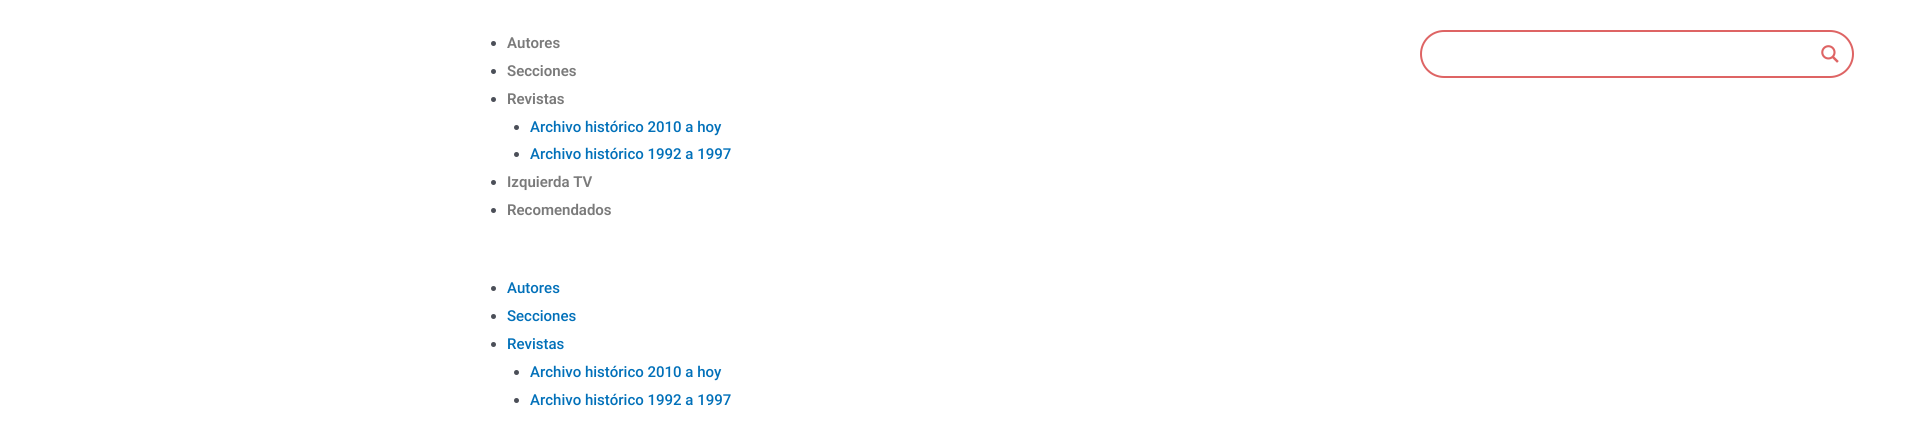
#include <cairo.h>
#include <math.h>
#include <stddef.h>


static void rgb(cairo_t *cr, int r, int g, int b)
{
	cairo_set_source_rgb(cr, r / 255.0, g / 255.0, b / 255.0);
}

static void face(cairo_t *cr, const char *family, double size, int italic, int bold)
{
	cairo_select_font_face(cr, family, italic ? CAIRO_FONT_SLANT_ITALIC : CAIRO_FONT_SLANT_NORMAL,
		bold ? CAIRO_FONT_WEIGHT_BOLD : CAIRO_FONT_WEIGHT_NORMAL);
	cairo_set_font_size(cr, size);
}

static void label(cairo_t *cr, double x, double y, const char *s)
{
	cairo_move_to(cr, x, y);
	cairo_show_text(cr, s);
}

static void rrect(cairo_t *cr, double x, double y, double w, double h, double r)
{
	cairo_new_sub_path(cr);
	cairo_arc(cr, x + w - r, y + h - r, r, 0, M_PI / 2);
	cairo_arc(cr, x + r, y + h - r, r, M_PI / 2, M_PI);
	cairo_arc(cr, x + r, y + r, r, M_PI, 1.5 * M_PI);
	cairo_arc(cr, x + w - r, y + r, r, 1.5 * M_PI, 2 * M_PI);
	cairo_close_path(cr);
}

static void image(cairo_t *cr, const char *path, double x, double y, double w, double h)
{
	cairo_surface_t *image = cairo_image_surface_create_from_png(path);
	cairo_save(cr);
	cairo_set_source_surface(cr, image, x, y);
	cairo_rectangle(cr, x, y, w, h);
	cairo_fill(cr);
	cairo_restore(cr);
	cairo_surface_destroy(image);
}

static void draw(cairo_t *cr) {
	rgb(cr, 255, 255, 255);
	cairo_paint(cr);
	rgb(cr, 75, 79, 88);
	cairo_arc(cr, 493.5, 43.5, 2.5, 0, 2 * M_PI);
	cairo_fill(cr);
	face(cr, "Roboto SemiBold", 15, 0, 0);
	rgb(cr, 122, 122, 122);
	label(cr, 507, 48, "Autores");
	rgb(cr, 75, 79, 88);
	cairo_new_path(cr);
	cairo_arc(cr, 493.5, 71.5, 2.5, 0, 2 * M_PI);
	cairo_fill(cr);
	rgb(cr, 122, 122, 122);
	label(cr, 507, 76, "Secciones");
	rgb(cr, 75, 79, 88);
	cairo_new_path(cr);
	cairo_arc(cr, 493.5, 99.5, 2.5, 0, 2 * M_PI);
	cairo_fill(cr);
	rgb(cr, 122, 122, 122);
	label(cr, 507, 104, "Revistas");
	rgb(cr, 75, 79, 88);
	cairo_new_path(cr);
	cairo_arc(cr, 516.5, 127.5, 2.5, 0, 2 * M_PI);
	cairo_fill(cr);
	face(cr, "Roboto Medium", 15, 0, 0);
	rgb(cr, 1, 112, 185);
	label(cr, 530, 132, "Archivo histórico 2010 a hoy");
	rgb(cr, 75, 79, 88);
	cairo_new_path(cr);
	cairo_arc(cr, 516.5, 154.5, 2.5, 0, 2 * M_PI);
	cairo_fill(cr);
	rgb(cr, 1, 112, 185);
	label(cr, 530, 159, "Archivo histórico 1992 a 1997");
	rgb(cr, 75, 79, 88);
	cairo_new_path(cr);
	cairo_arc(cr, 493.5, 182.5, 2.5, 0, 2 * M_PI);
	cairo_fill(cr);
	face(cr, "Roboto SemiBold", 15, 0, 0);
	rgb(cr, 122, 122, 122);
	label(cr, 507, 187, "Izquierda TV");
	rgb(cr, 75, 79, 88);
	cairo_new_path(cr);
	cairo_arc(cr, 493.5, 210.5, 2.5, 0, 2 * M_PI);
	cairo_fill(cr);
	rgb(cr, 122, 122, 122);
	label(cr, 507, 215, "Recomendados");
	rgb(cr, 75, 79, 88);
	cairo_new_path(cr);
	cairo_arc(cr, 493.5, 288.5, 2.5, 0, 2 * M_PI);
	cairo_fill(cr);
	face(cr, "Roboto Medium", 15, 0, 0);
	rgb(cr, 1, 112, 185);
	label(cr, 507, 293, "Autores");
	rgb(cr, 75, 79, 88);
	cairo_new_path(cr);
	cairo_arc(cr, 493.5, 316.5, 2.5, 0, 2 * M_PI);
	cairo_fill(cr);
	rgb(cr, 1, 112, 185);
	label(cr, 507, 321, "Secciones");
	rgb(cr, 75, 79, 88);
	cairo_new_path(cr);
	cairo_arc(cr, 493.5, 344.5, 2.5, 0, 2 * M_PI);
	cairo_fill(cr);
	rgb(cr, 1, 112, 185);
	label(cr, 507, 349, "Revistas");
	rgb(cr, 75, 79, 88);
	cairo_new_path(cr);
	cairo_arc(cr, 516.5, 372.5, 2.5, 0, 2 * M_PI);
	cairo_fill(cr);
	rgb(cr, 1, 112, 185);
	label(cr, 530, 377, "Archivo histórico 2010 a hoy");
	rgb(cr, 75, 79, 88);
	cairo_new_path(cr);
	cairo_arc(cr, 516.5, 400.5, 2.5, 0, 2 * M_PI);
	cairo_fill(cr);
	rgb(cr, 1, 112, 185);
	label(cr, 530, 405, "Archivo histórico 1992 a 1997");
	rrect(cr, 1421, 31, 432, 46, 23);
	rgb(cr, 222, 100, 100);
	cairo_stroke(cr);
	image(cr, "image0.png", 1821, 45, 18, 18);
}

int main(void) {
	cairo_surface_t *surface = cairo_image_surface_create(CAIRO_FORMAT_RGB24, 1917, 421);
	cairo_t *cr = cairo_create(surface);
	cairo_font_options_t *options = cairo_font_options_create();
	cairo_font_options_set_hint_metrics(options, CAIRO_HINT_METRICS_OFF);
	cairo_font_options_set_hint_style(options, CAIRO_HINT_STYLE_NONE);
	cairo_set_font_options(cr, options);
	cairo_set_miter_limit(cr, 4);
	draw(cr);
	cairo_surface_write_to_png(surface, "render.png");
	cairo_font_options_destroy(options);
	cairo_destroy(cr);
	cairo_surface_destroy(surface);
	return 0;
}
